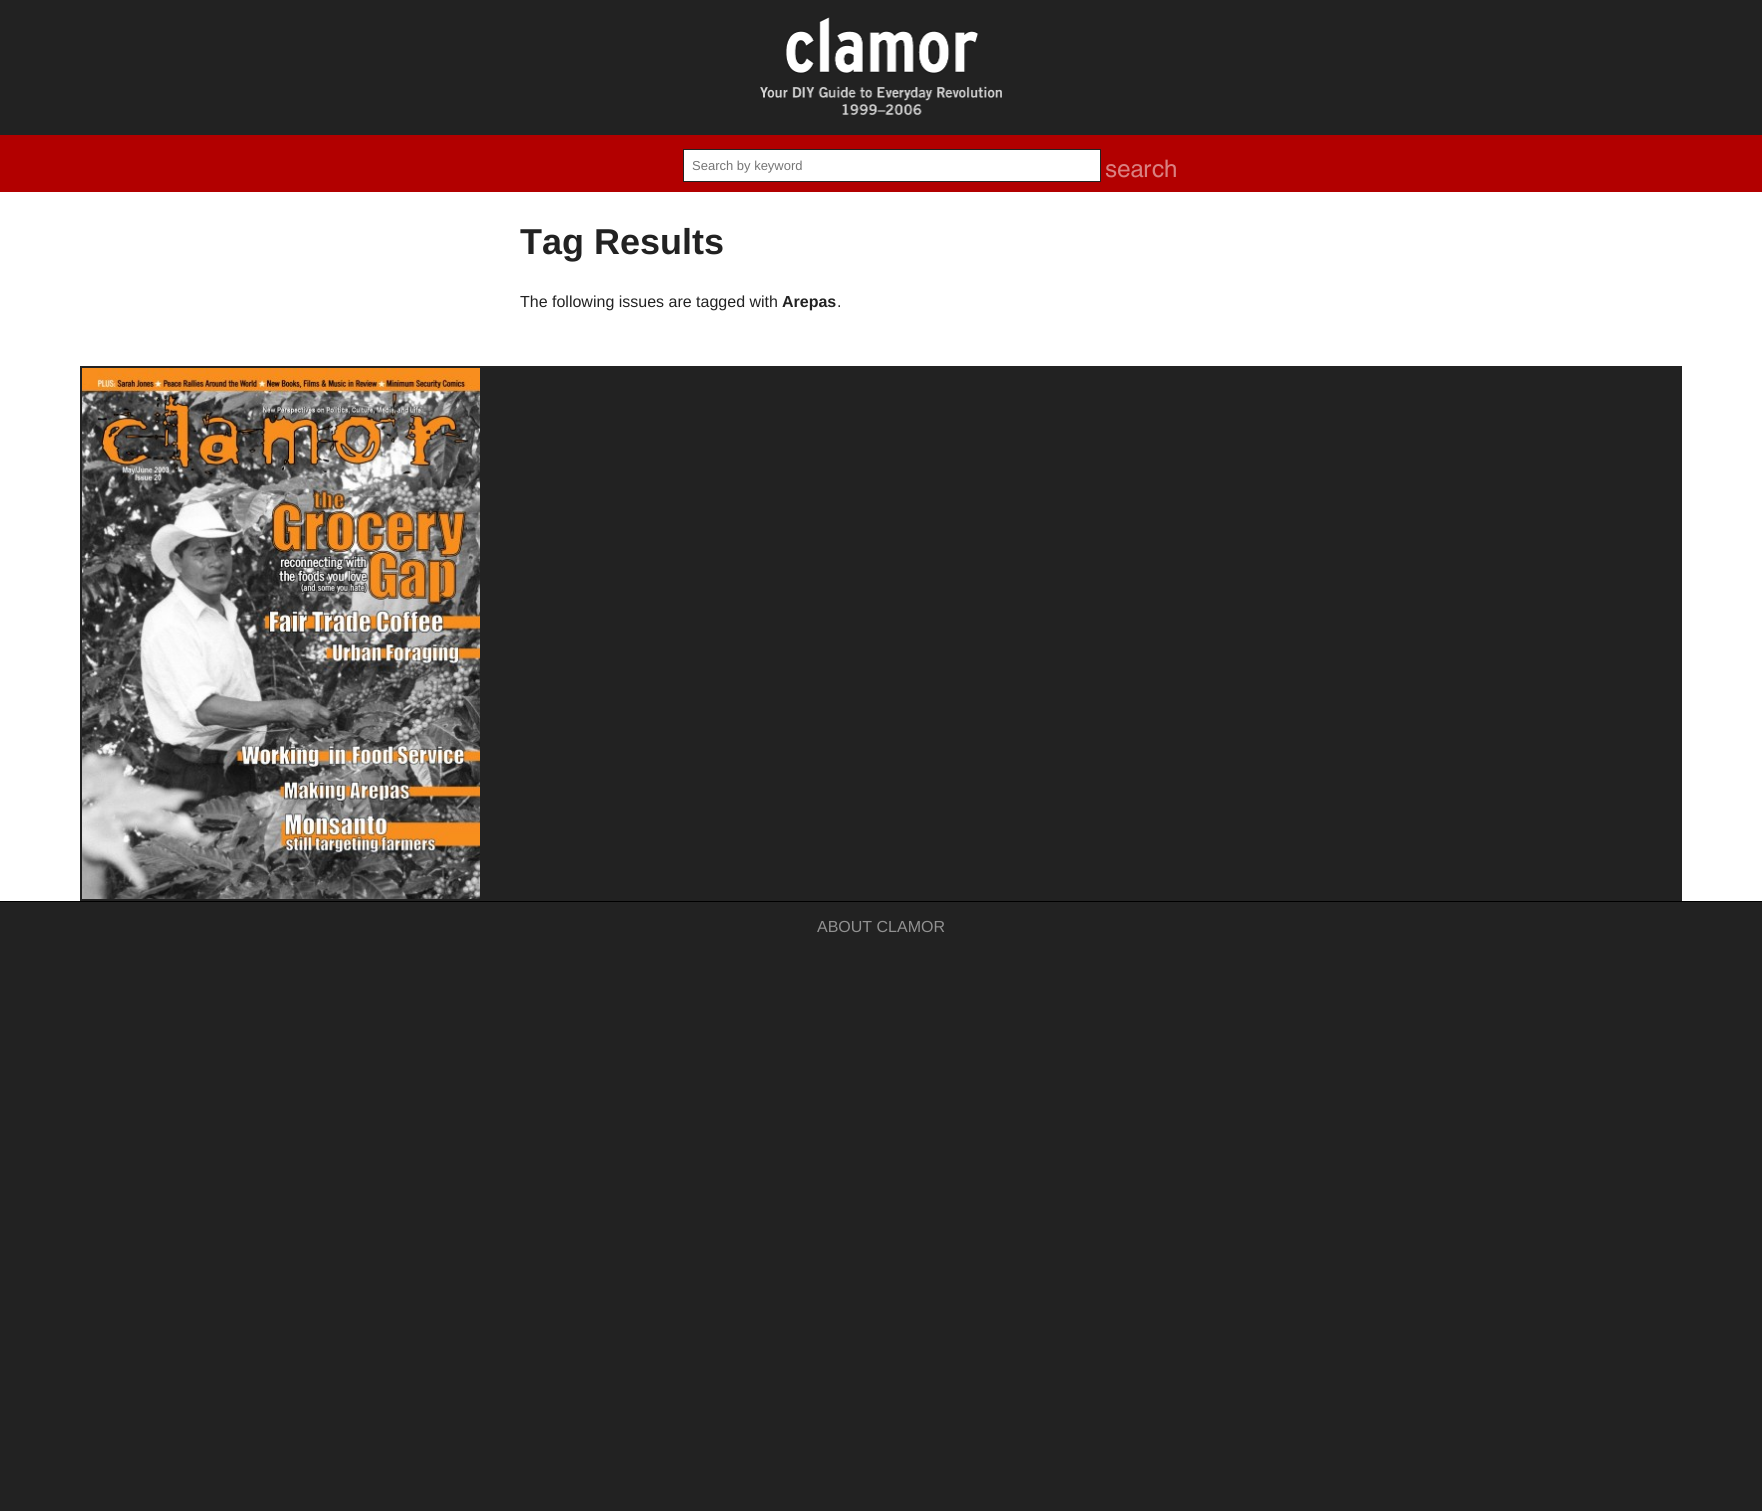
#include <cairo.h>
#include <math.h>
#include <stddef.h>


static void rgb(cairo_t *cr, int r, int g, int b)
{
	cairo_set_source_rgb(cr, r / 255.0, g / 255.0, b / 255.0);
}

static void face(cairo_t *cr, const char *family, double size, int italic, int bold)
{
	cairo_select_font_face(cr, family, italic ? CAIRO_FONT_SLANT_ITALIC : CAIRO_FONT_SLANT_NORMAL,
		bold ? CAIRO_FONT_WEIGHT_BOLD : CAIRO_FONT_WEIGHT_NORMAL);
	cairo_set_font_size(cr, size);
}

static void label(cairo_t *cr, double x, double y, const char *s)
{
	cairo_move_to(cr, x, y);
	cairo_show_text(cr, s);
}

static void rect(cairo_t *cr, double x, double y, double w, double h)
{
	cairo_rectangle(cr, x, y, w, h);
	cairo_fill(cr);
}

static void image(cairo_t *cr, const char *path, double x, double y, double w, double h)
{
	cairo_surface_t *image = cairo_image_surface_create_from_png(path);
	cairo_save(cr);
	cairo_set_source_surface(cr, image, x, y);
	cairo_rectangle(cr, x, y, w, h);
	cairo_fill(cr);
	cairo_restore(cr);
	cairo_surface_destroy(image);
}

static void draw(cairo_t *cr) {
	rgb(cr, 34, 34, 34);
	cairo_paint(cr);
	image(cr, "image0.png", 760, 17, 242, 98);
	rgb(cr, 178, 0, 0);
	rect(cr, 0, 135, 1762, 57);
	rgb(cr, 255, 255, 255);
	cairo_rectangle(cr, 683.5, 149.5, 417, 32);
	cairo_fill_preserve(cr);
	rgb(cr, 34, 34, 34);
	cairo_set_line_width(cr, 1);
	cairo_stroke(cr);
	face(cr, "Liberation Sans", 13, 0, 0);
	rgb(cr, 117, 117, 117);
	label(cr, 692, 170, "Search by keyword");
	image(cr, "image1.png", 1105, 159, 71, 19);
	rgb(cr, 255, 255, 255);
	rect(cr, 0, 192, 1762, 709);
	face(cr, "Liberation Sans", 36, 0, 1);
	rgb(cr, 34, 34, 34);
	label(cr, 520, 254, "Tag Results");
	face(cr, "Liberation Sans", 16, 0, 0);
	label(cr, 520, 307, "The following issues are tagged with");
	face(cr, "Liberation Sans", 16, 0, 1);
	label(cr, 782, 307, "Arepas");
	face(cr, "Liberation Sans", 16, 0, 0);
	label(cr, 837, 307, ".");
	rect(cr, 80, 366, 1602, 535);
	image(cr, "image2.png", 82, 368, 398, 531);
	rgb(cr, 0, 0, 0);
	rect(cr, 0, 901, 1762, 1);
	rgb(cr, 145, 145, 145);
	label(cr, 817, 932, "ABOUT CLAMOR");
}

int main(void) {
	cairo_surface_t *surface = cairo_image_surface_create(CAIRO_FORMAT_RGB24, 1762, 1511);
	cairo_t *cr = cairo_create(surface);
	cairo_font_options_t *options = cairo_font_options_create();
	cairo_font_options_set_hint_metrics(options, CAIRO_HINT_METRICS_OFF);
	cairo_font_options_set_hint_style(options, CAIRO_HINT_STYLE_NONE);
	cairo_set_font_options(cr, options);
	cairo_set_miter_limit(cr, 4);
	draw(cr);
	cairo_surface_write_to_png(surface, "render.png");
	cairo_font_options_destroy(options);
	cairo_destroy(cr);
	cairo_surface_destroy(surface);
	return 0;
}
